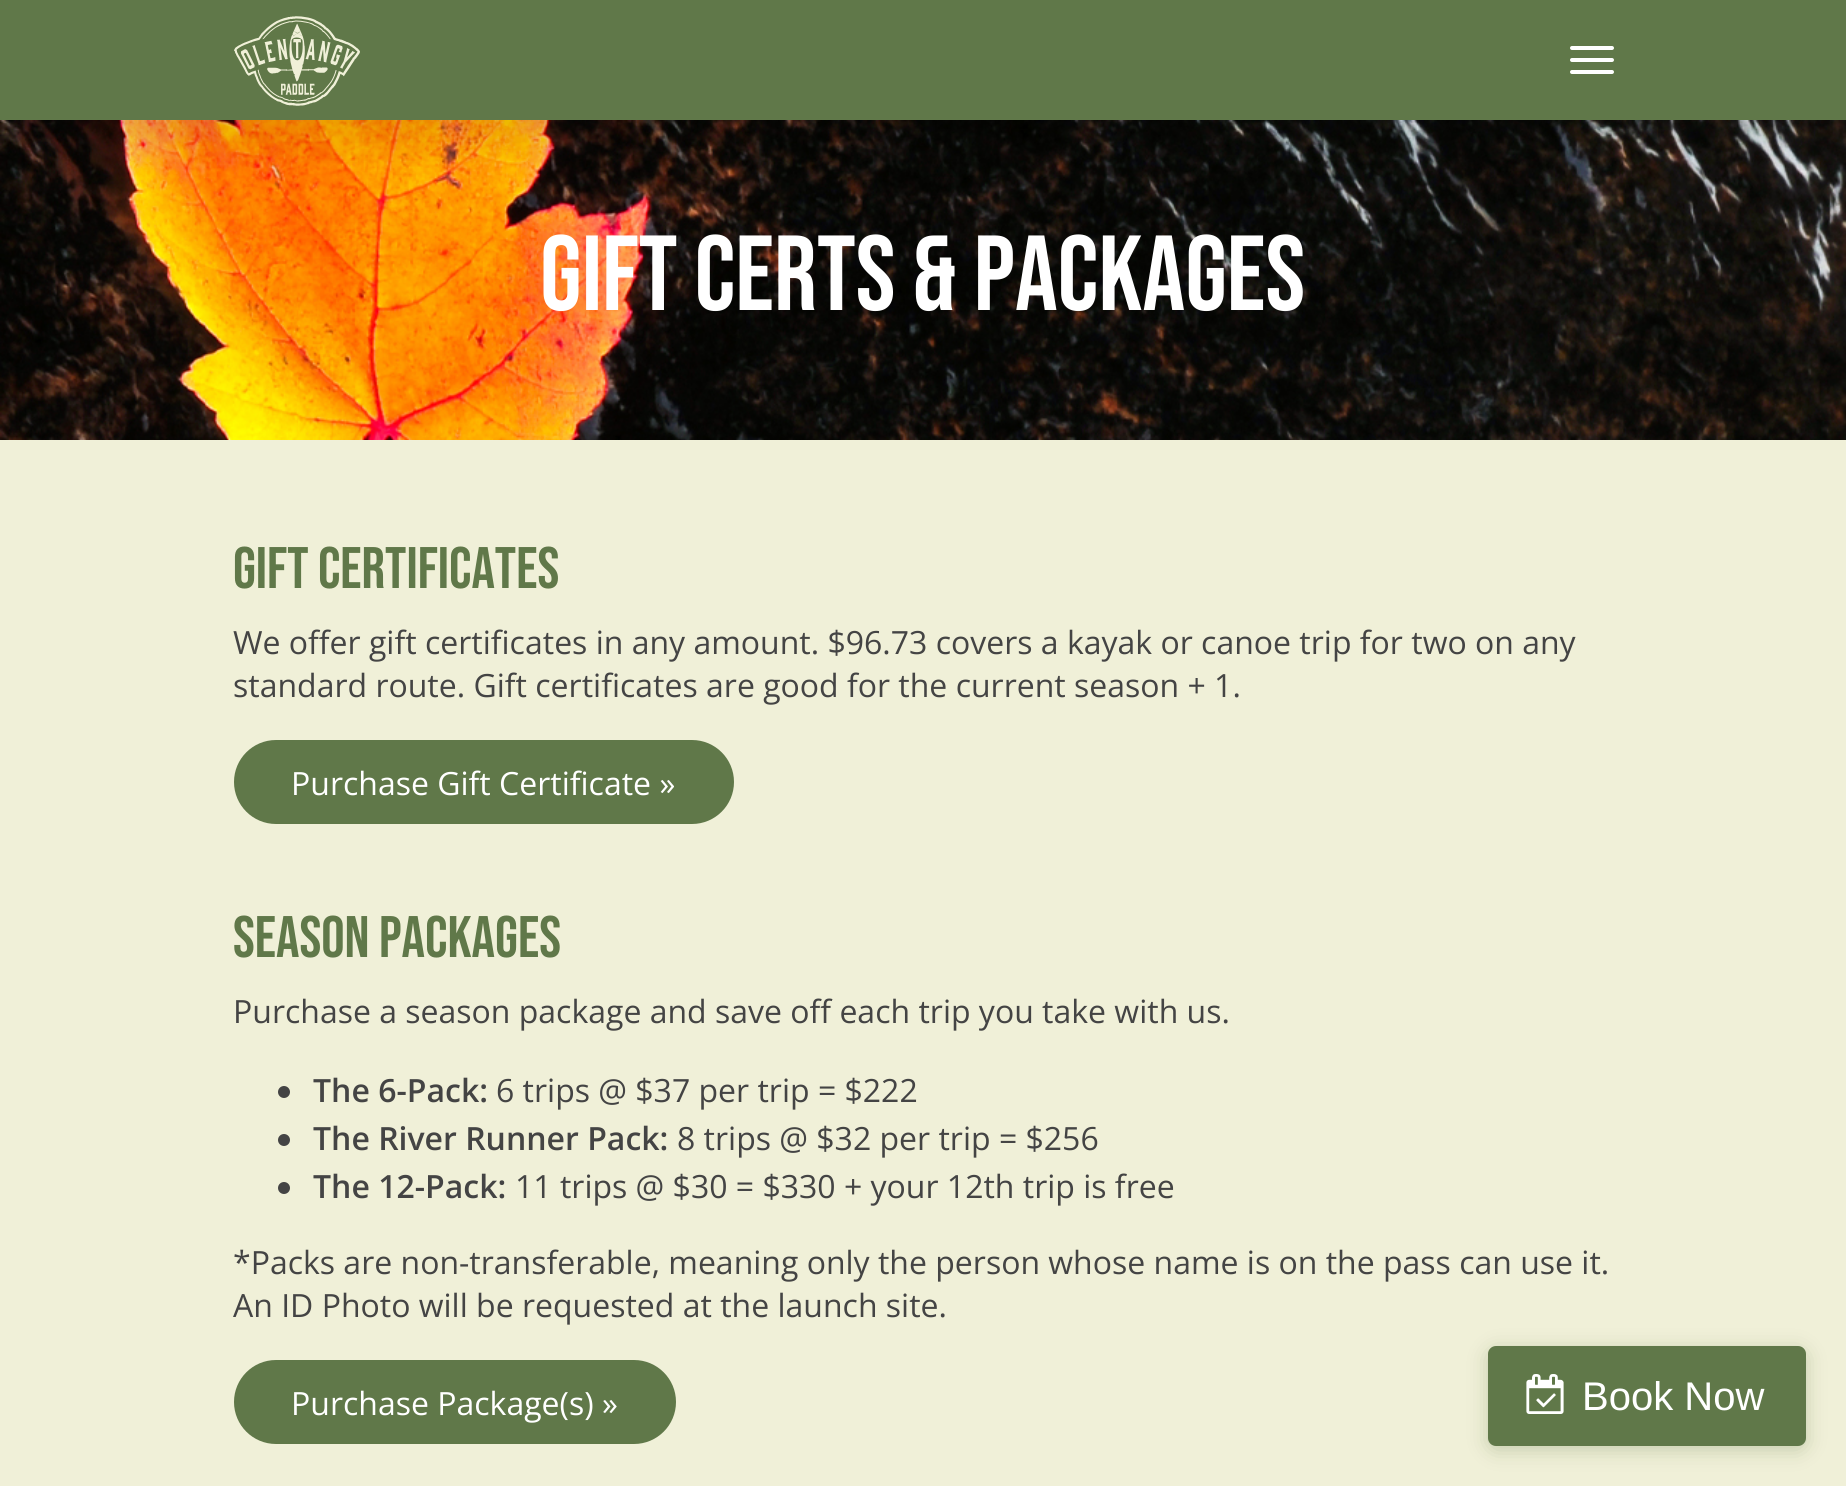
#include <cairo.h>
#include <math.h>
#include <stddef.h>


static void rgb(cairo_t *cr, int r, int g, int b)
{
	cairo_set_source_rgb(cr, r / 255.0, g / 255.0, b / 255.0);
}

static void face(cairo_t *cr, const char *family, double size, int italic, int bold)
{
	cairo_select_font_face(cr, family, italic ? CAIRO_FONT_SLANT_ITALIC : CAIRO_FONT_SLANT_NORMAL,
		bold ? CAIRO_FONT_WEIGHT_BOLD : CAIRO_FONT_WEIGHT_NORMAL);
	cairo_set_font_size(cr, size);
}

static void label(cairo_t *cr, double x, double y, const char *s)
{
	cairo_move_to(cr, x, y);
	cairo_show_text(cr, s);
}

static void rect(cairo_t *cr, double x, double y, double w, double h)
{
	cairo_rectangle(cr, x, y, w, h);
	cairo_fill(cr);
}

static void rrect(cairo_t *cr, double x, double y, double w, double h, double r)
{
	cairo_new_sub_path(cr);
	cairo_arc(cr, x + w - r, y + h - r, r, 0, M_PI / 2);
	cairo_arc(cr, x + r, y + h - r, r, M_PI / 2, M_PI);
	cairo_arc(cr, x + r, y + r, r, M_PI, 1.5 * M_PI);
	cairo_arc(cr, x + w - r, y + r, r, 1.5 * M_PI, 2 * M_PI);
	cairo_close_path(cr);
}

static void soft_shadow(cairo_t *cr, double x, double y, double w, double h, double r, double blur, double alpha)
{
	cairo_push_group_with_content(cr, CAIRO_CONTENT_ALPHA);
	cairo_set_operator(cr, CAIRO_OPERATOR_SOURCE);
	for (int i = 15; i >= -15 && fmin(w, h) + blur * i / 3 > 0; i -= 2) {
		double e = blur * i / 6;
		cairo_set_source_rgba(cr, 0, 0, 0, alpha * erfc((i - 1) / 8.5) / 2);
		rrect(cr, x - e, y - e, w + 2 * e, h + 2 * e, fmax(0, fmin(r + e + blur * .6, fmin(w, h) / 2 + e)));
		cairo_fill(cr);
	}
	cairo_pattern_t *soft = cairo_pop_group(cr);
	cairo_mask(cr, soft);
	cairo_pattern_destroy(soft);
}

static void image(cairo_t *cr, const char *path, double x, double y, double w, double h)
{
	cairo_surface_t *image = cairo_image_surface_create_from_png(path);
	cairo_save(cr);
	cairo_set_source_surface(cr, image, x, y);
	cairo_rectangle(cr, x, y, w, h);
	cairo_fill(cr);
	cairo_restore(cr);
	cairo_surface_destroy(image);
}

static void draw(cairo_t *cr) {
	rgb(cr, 255, 255, 255);
	cairo_paint(cr);
	image(cr, "image0.png", 0, 120, 1846, 320);
	face(cr, "Bebas Neue", 106.5, 0, 0);
	rgb(cr, 255, 255, 255);
	label(cr, 540, 310, "Gift Certs & Packages");
	rgb(cr, 240, 240, 216);
	rect(cr, 0, 440, 1846, 1046);
	face(cr, "Bebas Neue", 58.5, 0, 0);
	rgb(cr, 96, 120, 73);
	label(cr, 233, 588, "Gift Certificates");
	face(cr, "Open Sans", 32, 0, 0);
	rgb(cr, 68, 68, 68);
	label(cr, 233, 654, "We offer gift certificates in any amount. $96.73 covers a kayak or canoe trip for two on any");
	label(cr, 233, 697, "standard route. Gift certificates are good for the current season + 1.");
	rgb(cr, 96, 120, 73);
	rrect(cr, 234, 740, 500, 84, 42);
	cairo_fill(cr);
	rgb(cr, 255, 255, 255);
	label(cr, 291, 795, "Purchase Gift Certificate »");
	face(cr, "Bebas Neue", 58.5, 0, 0);
	rgb(cr, 96, 120, 73);
	label(cr, 233, 957, "Season Packages");
	face(cr, "Open Sans", 32, 0, 0);
	rgb(cr, 68, 68, 68);
	label(cr, 233, 1023, "Purchase a season package and save off each trip you take with us.");
	cairo_new_path(cr);
	cairo_arc(cr, 284, 1092, 6, 0, 2 * M_PI);
	cairo_fill(cr);
	face(cr, "Open Sans SemiBold", 32, 0, 0);
	label(cr, 313, 1102, "The 6-Pack:");
	face(cr, "Open Sans", 32, 0, 0);
	label(cr, 496, 1102, "6 trips @ $37 per trip = $222");
	cairo_new_path(cr);
	cairo_arc(cr, 284, 1140, 6, 0, 2 * M_PI);
	cairo_fill(cr);
	face(cr, "Open Sans SemiBold", 32, 0, 0);
	label(cr, 313, 1150, "The River Runner Pack:");
	face(cr, "Open Sans", 32, 0, 0);
	label(cr, 677, 1150, "8 trips @ $32 per trip = $256");
	cairo_new_path(cr);
	cairo_arc(cr, 284, 1188, 6, 0, 2 * M_PI);
	cairo_fill(cr);
	face(cr, "Open Sans SemiBold", 32, 0, 0);
	label(cr, 313, 1198, "The 12-Pack:");
	face(cr, "Open Sans", 32, 0, 0);
	label(cr, 515, 1198, "11 trips @ $30 = $330 + your 12th trip is free");
	label(cr, 233, 1274, "*Packs are non-transferable, meaning only the person whose name is on the pass can use it.");
	label(cr, 233, 1317, "An ID Photo will be requested at the launch site.");
	rgb(cr, 96, 120, 73);
	rrect(cr, 234, 1360, 442, 84, 42);
	cairo_fill(cr);
	rgb(cr, 255, 255, 255);
	label(cr, 291, 1415, "Purchase Package(s) »");
	rgb(cr, 0, 0, 0);
	soft_shadow(cr, 0, 20, 1846, 120, 0, 20, 0.08);
	rgb(cr, 96, 120, 73);
	rect(cr, 0, 0, 1846, 120);
	image(cr, "image1.png", 234, 16, 126, 90);
	rgb(cr, 255, 255, 255);
	rrect(cr, 1570, 46, 44, 4, 2);
	cairo_fill(cr);
	rrect(cr, 1570, 58, 44, 4, 2);
	cairo_fill(cr);
	rrect(cr, 1570, 70, 44, 4, 2);
	cairo_fill(cr);
	rgb(cr, 96, 120, 73);
	soft_shadow(cr, 1488, 1350, 318, 100, 8, 10, 0.3);
	rgb(cr, 96, 120, 73);
	rrect(cr, 1489, 1347, 316, 98, 7);
	cairo_fill_preserve(cr);
	cairo_stroke(cr);
	image(cr, "image2.png", 1526, 1374, 38, 40);
	face(cr, "Liberation Sans", 40, 0, 0);
	rgb(cr, 255, 255, 255);
	label(cr, 1582, 1410, "Book Now");
}

int main(void) {
	cairo_surface_t *surface = cairo_image_surface_create(CAIRO_FORMAT_RGB24, 1846, 1486);
	cairo_t *cr = cairo_create(surface);
	cairo_font_options_t *options = cairo_font_options_create();
	cairo_font_options_set_hint_metrics(options, CAIRO_HINT_METRICS_OFF);
	cairo_font_options_set_hint_style(options, CAIRO_HINT_STYLE_NONE);
	cairo_set_font_options(cr, options);
	cairo_set_miter_limit(cr, 4);
	draw(cr);
	cairo_surface_write_to_png(surface, "render.png");
	cairo_font_options_destroy(options);
	cairo_destroy(cr);
	cairo_surface_destroy(surface);
	return 0;
}
